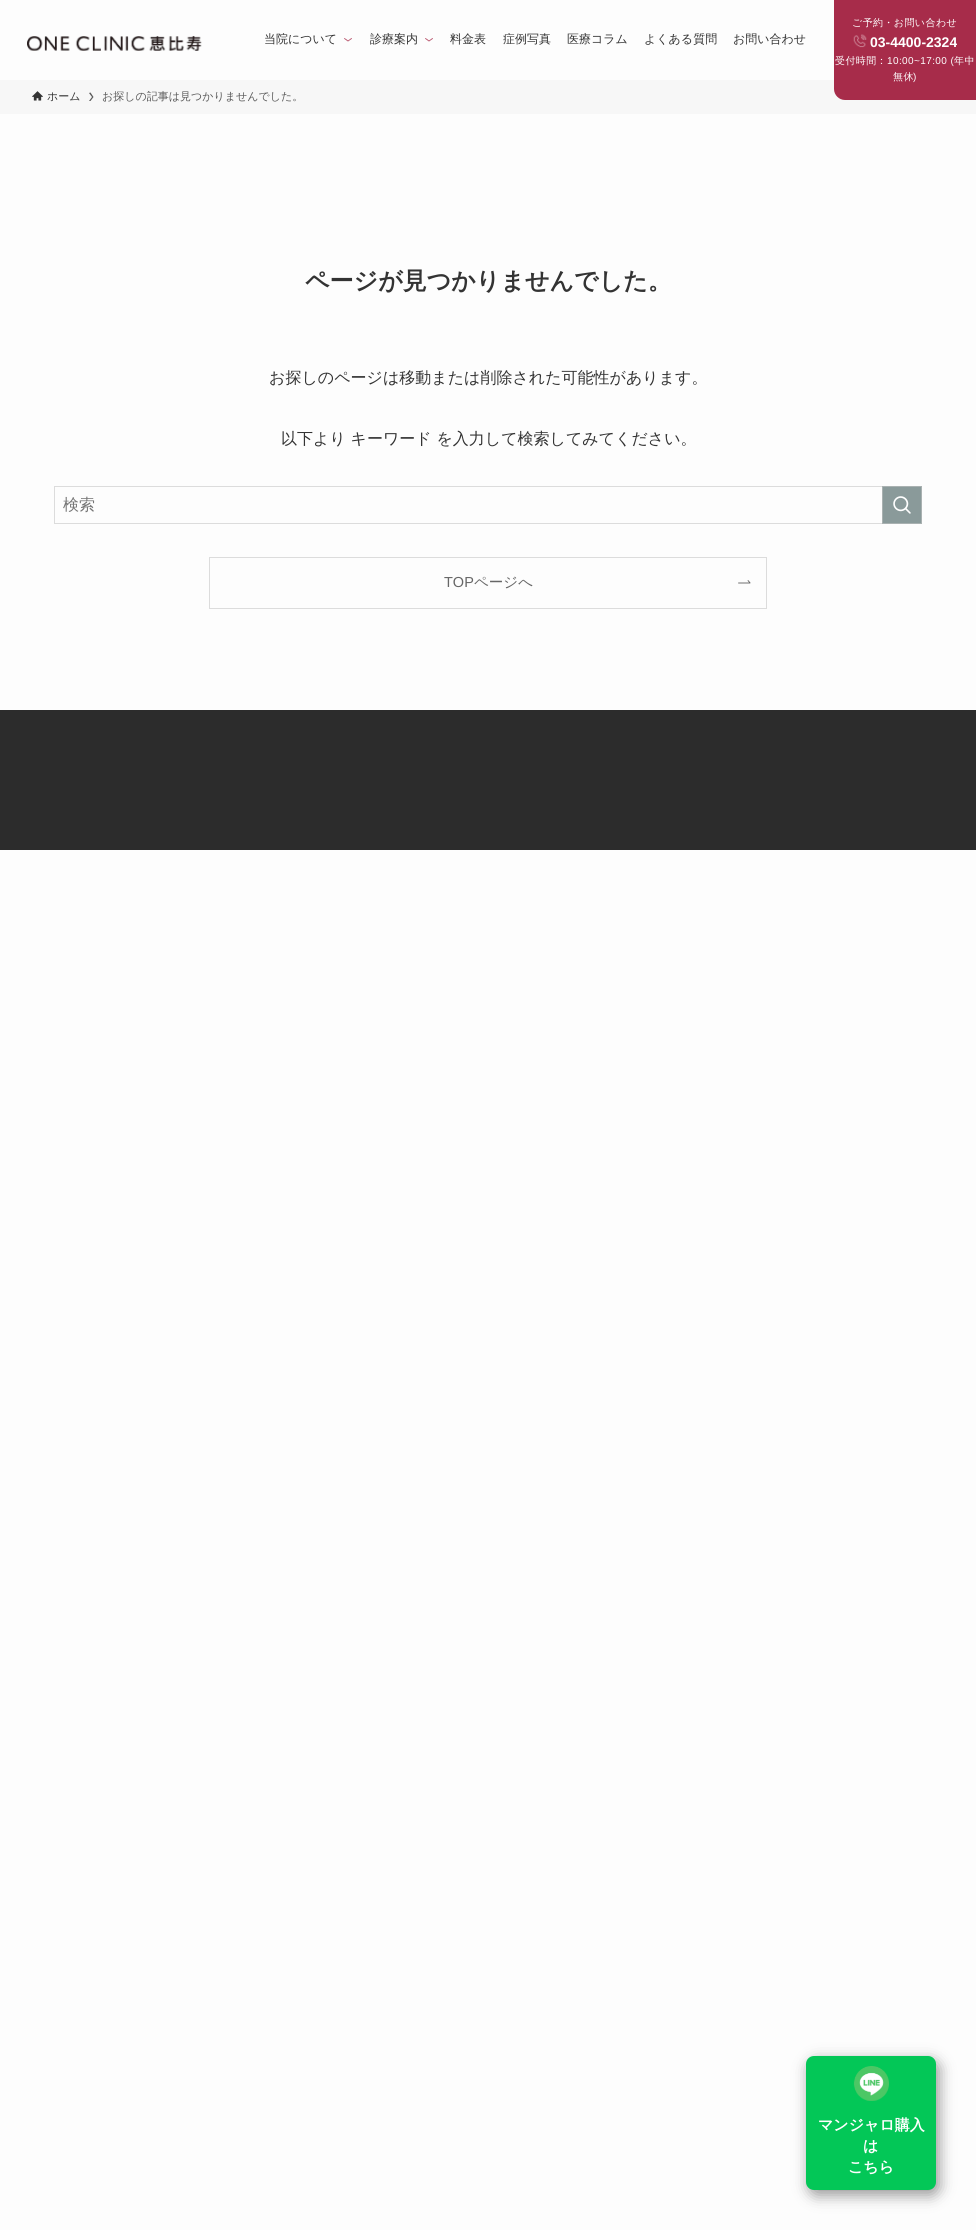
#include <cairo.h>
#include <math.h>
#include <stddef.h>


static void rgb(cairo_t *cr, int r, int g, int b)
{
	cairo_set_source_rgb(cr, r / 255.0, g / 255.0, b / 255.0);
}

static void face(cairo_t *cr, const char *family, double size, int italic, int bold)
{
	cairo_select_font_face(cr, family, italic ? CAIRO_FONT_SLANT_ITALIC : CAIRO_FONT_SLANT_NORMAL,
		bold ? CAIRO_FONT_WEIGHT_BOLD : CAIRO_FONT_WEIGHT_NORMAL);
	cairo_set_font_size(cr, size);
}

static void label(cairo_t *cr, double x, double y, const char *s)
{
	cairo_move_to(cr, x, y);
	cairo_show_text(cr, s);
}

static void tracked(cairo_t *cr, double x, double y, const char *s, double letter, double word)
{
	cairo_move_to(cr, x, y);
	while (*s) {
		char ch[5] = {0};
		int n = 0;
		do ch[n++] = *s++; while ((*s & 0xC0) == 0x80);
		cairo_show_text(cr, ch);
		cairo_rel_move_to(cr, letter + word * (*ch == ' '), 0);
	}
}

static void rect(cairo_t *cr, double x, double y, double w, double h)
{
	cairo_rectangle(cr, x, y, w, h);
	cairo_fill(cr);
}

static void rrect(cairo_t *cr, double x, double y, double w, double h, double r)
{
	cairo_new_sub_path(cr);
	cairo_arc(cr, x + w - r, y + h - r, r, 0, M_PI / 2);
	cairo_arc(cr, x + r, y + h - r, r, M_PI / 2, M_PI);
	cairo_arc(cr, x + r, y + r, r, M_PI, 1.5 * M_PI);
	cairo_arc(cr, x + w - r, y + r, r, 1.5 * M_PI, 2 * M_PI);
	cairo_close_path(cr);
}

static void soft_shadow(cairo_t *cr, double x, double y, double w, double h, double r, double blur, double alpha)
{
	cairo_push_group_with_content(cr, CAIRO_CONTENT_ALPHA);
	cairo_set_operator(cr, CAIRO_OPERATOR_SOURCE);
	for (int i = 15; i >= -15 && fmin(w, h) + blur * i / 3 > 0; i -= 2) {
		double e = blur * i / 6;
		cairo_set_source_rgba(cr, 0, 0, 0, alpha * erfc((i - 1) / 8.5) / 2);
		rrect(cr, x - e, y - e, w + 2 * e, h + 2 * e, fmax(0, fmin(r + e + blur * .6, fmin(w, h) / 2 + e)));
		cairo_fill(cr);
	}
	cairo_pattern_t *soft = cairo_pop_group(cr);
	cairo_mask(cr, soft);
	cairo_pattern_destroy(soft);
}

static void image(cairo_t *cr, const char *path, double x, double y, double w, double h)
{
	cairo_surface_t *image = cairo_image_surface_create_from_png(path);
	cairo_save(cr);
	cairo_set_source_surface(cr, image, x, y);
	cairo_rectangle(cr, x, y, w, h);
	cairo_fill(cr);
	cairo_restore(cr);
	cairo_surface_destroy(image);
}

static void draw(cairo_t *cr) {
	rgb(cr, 253, 253, 253);
	cairo_paint(cr);
	image(cr, "image0.png", 27, 36, 175, 15);
	face(cr, "WenQuanYi Zen Hei Medium", 12, 0, 0);
	rgb(cr, 51, 51, 51);
	label(cr, 264, 43, "当院について");
	cairo_new_path(cr);
	cairo_move_to(cr, 344.5, 38.5);
	cairo_line_to(cr, 348, 41);
	cairo_line_to(cr, 351.5, 38.5);
	rgb(cr, 185, 86, 110);
	cairo_set_line_width(cr, 0.9);
	cairo_set_line_cap(cr, CAIRO_LINE_CAP_ROUND);
	cairo_stroke(cr);
	rgb(cr, 51, 51, 51);
	label(cr, 370, 43, "診療案内");
	cairo_new_path(cr);
	cairo_move_to(cr, 425.5, 38.5);
	cairo_line_to(cr, 429, 41);
	cairo_line_to(cr, 432.5, 38.5);
	rgb(cr, 185, 86, 110);
	cairo_stroke(cr);
	rgb(cr, 51, 51, 51);
	label(cr, 450, 43, "料金表");
	label(cr, 503, 43, "症例写真");
	label(cr, 567, 43, "医療コラム");
	label(cr, 644, 43, "よくある質問");
	label(cr, 733, 43, "お問い合わせ");
	rgb(cr, 247, 247, 247);
	rect(cr, 0, 80, 976, 34);
	rgb(cr, 167, 44, 74);
	cairo_new_path(cr);
	cairo_move_to(cr, 834, 0);
	cairo_line_to(cr, 976, 0);
	cairo_line_to(cr, 976, 100);
	cairo_line_to(cr, 845, 100);
	cairo_curve_to(cr, 839, 100, 834, 95, 834, 89);
	cairo_close_path(cr);
	cairo_fill(cr);
	face(cr, "WenQuanYi Zen Hei Medium", 10, 0, 0);
	rgb(cr, 255, 255, 255);
	tracked(cr, 852, 26, "ご予約・お問い合わせ", 0.4, 0);
	image(cr, "image1.png", 853, 34, 14, 14);
	face(cr, "Liberation Sans", 14, 0, 1);
	label(cr, 870, 47, "03-4400-2324");
	face(cr, "WenQuanYi Zen Hei Medium", 10, 0, 0);
	tracked(cr, 835, 64, "受付時間：", 0.4, 0);
	face(cr, "Liberation Sans", 10, 0, 0);
	tracked(cr, 887, 64, "10:00~17:00 (", 0.4, 0);
	face(cr, "WenQuanYi Zen Hei Medium", 10, 0, 0);
	tracked(cr, 954, 64, "年中", 0.4, 0);
	tracked(cr, 893, 80, "無休", 0.4, 0);
	face(cr, "Liberation Sans", 10, 0, 0);
	tracked(cr, 913, 80, ")", 0.4, 0);
	image(cr, "image2.png", 32, 91, 11, 10);
	face(cr, "WenQuanYi Zen Hei Medium", 11, 0, 0);
	rgb(cr, 51, 51, 51);
	label(cr, 47, 100, "ホーム");
	rgb(cr, 90, 90, 90);
	cairo_new_path(cr);
	cairo_move_to(cr, 90.5, 92.5);
	cairo_line_to(cr, 89, 93);
	cairo_line_to(cr, 92, 97);
	cairo_line_to(cr, 89, 101);
	cairo_line_to(cr, 90.5, 101);
	cairo_line_to(cr, 93.5, 97);
	cairo_close_path(cr);
	cairo_fill(cr);
	label(cr, 102, 100, "お探しの記事は見つかりませんでした。");
	face(cr, "WenQuanYi Zen Hei", 24, 0, 1);
	rgb(cr, 51, 51, 51);
	label(cr, 305, 289, "ページが見つかりませんでした。");
	face(cr, "WenQuanYi Zen Hei Medium", 16, 0, 0);
	label(cr, 269, 383, "お探しのページは移動または削除された可能性があります。");
	label(cr, 281, 444, "以下より キーワード を入力して検索してみてください。");
	cairo_rectangle(cr, 54.5, 486.5, 867, 37);
	rgb(cr, 220, 220, 220);
	cairo_set_line_width(cr, 1);
	cairo_set_line_cap(cr, CAIRO_LINE_CAP_BUTT);
	cairo_stroke(cr);
	rgb(cr, 117, 117, 117);
	label(cr, 63, 510, "検索");
	rgb(cr, 138, 154, 154);
	cairo_rectangle(cr, 882.5, 486.5, 39, 37);
	cairo_fill_preserve(cr);
	rgb(cr, 169, 177, 177);
	cairo_stroke(cr);
	image(cr, "image3.png", 893, 496, 18, 18);
	cairo_rectangle(cr, 209.5, 557.5, 557, 51);
	rgb(cr, 220, 220, 220);
	cairo_stroke(cr);
	face(cr, "Liberation Sans", 14.5, 0, 0);
	rgb(cr, 102, 102, 102);
	label(cr, 444, 587, "TOP");
	face(cr, "WenQuanYi Zen Hei Medium", 14.5, 0, 0);
	label(cr, 474, 587, "ページへ");
	image(cr, "image4.png", 738, 580, 13, 4);
	rgb(cr, 44, 44, 44);
	rect(cr, 0, 710, 976, 140);
	rgb(cr, 0, 0, 0);
	soft_shadow(cr, 809, 2061, 130, 134, 8, 7.5, 0.42);
	rgb(cr, 3, 199, 87);
	rrect(cr, 806, 2056, 130, 134, 8);
	cairo_fill(cr);
	image(cr, "image5.png", 853, 2066, 36, 35);
	face(cr, "WenQuanYi Zen Hei", 15, 0, 1);
	rgb(cr, 255, 255, 255);
	label(cr, 818, 2130, "マンジャロ購入");
	label(cr, 863, 2151, "は");
	label(cr, 848, 2172, "こちら");
}

int main(void) {
	cairo_surface_t *surface = cairo_image_surface_create(CAIRO_FORMAT_RGB24, 976, 2230);
	cairo_t *cr = cairo_create(surface);
	cairo_font_options_t *options = cairo_font_options_create();
	cairo_font_options_set_hint_metrics(options, CAIRO_HINT_METRICS_OFF);
	cairo_font_options_set_hint_style(options, CAIRO_HINT_STYLE_NONE);
	cairo_set_font_options(cr, options);
	cairo_set_miter_limit(cr, 4);
	draw(cr);
	cairo_surface_write_to_png(surface, "render.png");
	cairo_font_options_destroy(options);
	cairo_destroy(cr);
	cairo_surface_destroy(surface);
	return 0;
}
